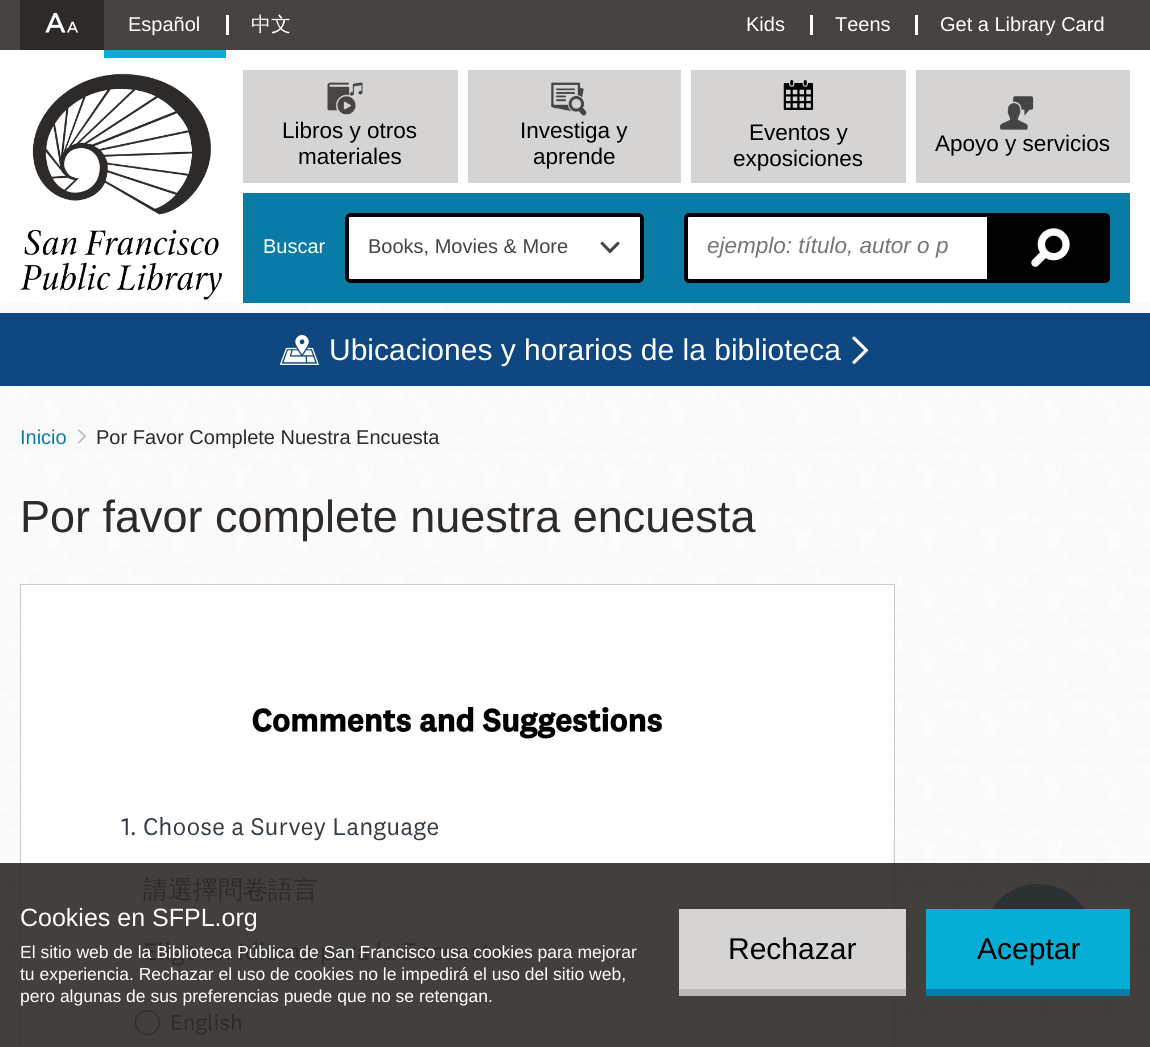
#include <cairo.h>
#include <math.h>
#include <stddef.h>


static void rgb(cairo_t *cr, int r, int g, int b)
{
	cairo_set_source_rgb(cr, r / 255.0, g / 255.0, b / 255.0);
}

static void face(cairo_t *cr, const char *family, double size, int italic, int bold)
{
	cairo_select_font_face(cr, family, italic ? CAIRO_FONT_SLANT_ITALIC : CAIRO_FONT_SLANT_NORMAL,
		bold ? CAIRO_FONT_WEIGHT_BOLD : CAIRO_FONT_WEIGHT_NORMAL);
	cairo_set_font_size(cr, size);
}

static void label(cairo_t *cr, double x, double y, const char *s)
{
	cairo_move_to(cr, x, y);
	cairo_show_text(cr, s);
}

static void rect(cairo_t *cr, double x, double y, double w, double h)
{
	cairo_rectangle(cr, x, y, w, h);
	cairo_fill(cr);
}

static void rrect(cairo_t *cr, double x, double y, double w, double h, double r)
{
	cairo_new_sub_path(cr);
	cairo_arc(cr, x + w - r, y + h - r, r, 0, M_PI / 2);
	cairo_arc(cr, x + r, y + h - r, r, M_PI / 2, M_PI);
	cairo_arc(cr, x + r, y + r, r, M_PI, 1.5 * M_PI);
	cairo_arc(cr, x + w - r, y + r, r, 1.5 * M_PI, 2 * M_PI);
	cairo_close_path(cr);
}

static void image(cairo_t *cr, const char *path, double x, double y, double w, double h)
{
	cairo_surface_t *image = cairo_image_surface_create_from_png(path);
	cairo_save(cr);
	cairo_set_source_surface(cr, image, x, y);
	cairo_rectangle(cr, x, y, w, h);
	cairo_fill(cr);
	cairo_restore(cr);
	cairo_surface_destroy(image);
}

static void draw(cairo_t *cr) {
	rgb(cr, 255, 255, 255);
	cairo_paint(cr);
	image(cr, "image0.png", 0, 303, 1150, 744);
	rgb(cr, 71, 67, 64);
	rect(cr, 0, 0, 1150, 50);
	rgb(cr, 46, 42, 39);
	rect(cr, 20, 0, 84, 50);
	image(cr, "image1.png", 45, 12, 34, 21);
	rgb(cr, 6, 174, 213);
	rect(cr, 104, 50, 122, 8);
	face(cr, "Liberation Sans", 20, 0, 0);
	rgb(cr, 255, 255, 255);
	label(cr, 128, 31, "Español");
	rect(cr, 226, 15, 3, 20);
	face(cr, "WenQuanYi Zen Hei Medium", 20, 0, 0);
	label(cr, 251, 31, "中文");
	face(cr, "Liberation Sans", 20, 0, 0);
	label(cr, 746, 31, "Kids");
	rect(cr, 810, 15, 3, 20);
	label(cr, 835, 31, "Teens");
	rect(cr, 915, 15, 3, 20);
	label(cr, 940, 31, "Get a Library Card");
	image(cr, "image2.png", 20, 73, 202, 227);
	rgb(cr, 214, 212, 210);
	rect(cr, 243, 70, 215, 113);
	image(cr, "image3.png", 327, 82, 36, 33);
	face(cr, "Liberation Sans", 22.5, 0, 0);
	rgb(cr, 0, 0, 0);
	label(cr, 282, 138, "Libros y otros");
	label(cr, 298, 164, "materiales");
	rgb(cr, 214, 212, 210);
	rect(cr, 468, 70, 213, 113);
	image(cr, "image4.png", 551, 82, 36, 34);
	rgb(cr, 0, 0, 0);
	label(cr, 520, 138, "Investiga y");
	label(cr, 533, 164, "aprende");
	rgb(cr, 214, 212, 210);
	rect(cr, 691, 70, 215, 113);
	image(cr, "image5.png", 783, 80, 31, 30);
	rgb(cr, 0, 0, 0);
	label(cr, 749, 140, "Eventos y");
	label(cr, 733, 166, "exposiciones");
	rgb(cr, 214, 212, 210);
	rect(cr, 916, 70, 214, 113);
	image(cr, "image6.png", 1000, 96, 34, 34);
	rgb(cr, 0, 0, 0);
	label(cr, 935, 151, "Apoyo y servicios");
	rgb(cr, 8, 124, 167);
	rect(cr, 243, 193, 887, 110);
	face(cr, "Liberation Sans", 20, 0, 0);
	rgb(cr, 255, 255, 255);
	label(cr, 263, 253, "Buscar");
	rrect(cr, 345, 213, 299, 70, 5);
	cairo_fill(cr);
	image(cr, "image7.png", 600, 241, 20, 13);
	rrect(cr, 347, 215, 295, 66, 3);
	rgb(cr, 0, 0, 0);
	cairo_set_line_width(cr, 4);
	cairo_stroke(cr);
	rgb(cr, 71, 67, 64);
	label(cr, 368, 253, "Books, Movies & More");
	rgb(cr, 255, 255, 255);
	cairo_new_path(cr);
	cairo_move_to(cr, 689, 215);
	cairo_line_to(cr, 989, 215);
	cairo_line_to(cr, 989, 281);
	cairo_line_to(cr, 689, 281);
	cairo_curve_to(cr, 687.5, 281, 686, 279.5, 686, 278);
	cairo_line_to(cr, 686, 218);
	cairo_curve_to(cr, 686, 216.5, 687.5, 215, 689, 215);
	cairo_close_path(cr);
	cairo_fill_preserve(cr);
	rgb(cr, 0, 0, 0);
	cairo_stroke(cr);
	face(cr, "Liberation Sans", 22.5, 1, 0);
	rgb(cr, 117, 117, 117);
	label(cr, 707, 253, "ejemplo: título, autor o p");
	rgb(cr, 0, 0, 0);
	cairo_new_path(cr);
	cairo_move_to(cr, 991, 213);
	cairo_line_to(cr, 1105, 213);
	cairo_curve_to(cr, 1108, 213, 1110, 215, 1110, 218);
	cairo_line_to(cr, 1110, 278);
	cairo_curve_to(cr, 1110, 281, 1108, 283, 1105, 283);
	cairo_line_to(cr, 991, 283);
	cairo_close_path(cr);
	cairo_fill(cr);
	image(cr, "image8.png", 1031, 228, 39, 39);
	rgb(cr, 15, 72, 128);
	rect(cr, 0, 313, 1150, 73);
	image(cr, "image9.png", 280, 335, 39, 30);
	face(cr, "Liberation Sans", 30, 0, 0);
	rgb(cr, 255, 255, 255);
	label(cr, 329, 360, "Ubicaciones y horarios de la biblioteca");
	image(cr, "image10.png", 852, 336, 17, 29);
	face(cr, "Liberation Sans", 20, 0, 0);
	rgb(cr, 8, 124, 167);
	label(cr, 20, 444, "Inicio");
	image(cr, "image11.png", 78, 429, 8, 15);
	rgb(cr, 46, 42, 39);
	label(cr, 96, 444, "Por Favor Complete Nuestra Encuesta");
	rgb(cr, 8, 124, 167);
	cairo_new_path(cr);
	cairo_move_to(cr, 1038, 884);
	cairo_curve_to(cr, 1000, 884, 970, 923, 994, 956);
	cairo_line_to(cr, 992, 972);
	cairo_curve_to(cr, 991, 980, 989, 984, 998, 980);
	cairo_line_to(cr, 1015, 973);
	cairo_curve_to(cr, 1026, 978, 1039, 979, 1051, 976);
	cairo_curve_to(cr, 1062, 973, 1072, 968, 1079, 959);
	cairo_curve_to(cr, 1108, 926, 1078, 884, 1038, 884);
	cairo_close_path(cr);
	cairo_fill(cr);
	face(cr, "Liberation Sans", 45, 0, 0);
	rgb(cr, 46, 42, 39);
	label(cr, 20, 532, "Por favor complete nuestra encuesta");
	rgb(cr, 255, 255, 255);
	cairo_rectangle(cr, 20.5, 584.5, 874, 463);
	cairo_fill_preserve(cr);
	rgb(cr, 204, 204, 204);
	cairo_set_line_width(cr, 1);
	cairo_stroke(cr);
	image(cr, "image12.png", 121, 593, 773, 454);
	cairo_set_source_rgba(cr, 0.18, 0.165, 0.153, 0.9);
	rect(cr, 0, 863, 1150, 184);
	face(cr, "Liberation Sans", 25, 0, 0);
	rgb(cr, 255, 255, 255);
	label(cr, 20, 926, "Cookies en SFPL.org");
	face(cr, "Liberation Sans", 17.5, 0, 0);
	label(cr, 20, 958, "El sitio web de la Biblioteca Pública de San Francisco usa cookies para mejorar");
	label(cr, 20, 980, "tu experiencia. Rechazar el uso de cookies no le impedirá el uso del sitio web,");
	label(cr, 20, 1002, "pero algunas de sus preferencias puede que no se retengan.");
	rgb(cr, 187, 184, 181);
	rect(cr, 679, 989, 227, 7);
	rgb(cr, 214, 212, 210);
	rect(cr, 679, 909, 227, 80);
	face(cr, "Liberation Sans", 30, 0, 0);
	rgb(cr, 0, 0, 0);
	label(cr, 728, 959, "Rechazar");
	rgb(cr, 8, 124, 167);
	cairo_new_path(cr);
	cairo_move_to(cr, 926, 916);
	cairo_line_to(cr, 926, 996);
	cairo_line_to(cr, 1130, 996);
	cairo_line_to(cr, 1130, 989);
	cairo_line_to(cr, 926, 989);
	cairo_close_path(cr);
	cairo_fill(cr);
	rgb(cr, 6, 174, 213);
	rect(cr, 926, 909, 204, 80);
	rgb(cr, 0, 0, 0);
	label(cr, 977, 959, "Aceptar");
}

int main(void) {
	cairo_surface_t *surface = cairo_image_surface_create(CAIRO_FORMAT_RGB24, 1150, 1047);
	cairo_t *cr = cairo_create(surface);
	cairo_font_options_t *options = cairo_font_options_create();
	cairo_font_options_set_hint_metrics(options, CAIRO_HINT_METRICS_OFF);
	cairo_font_options_set_hint_style(options, CAIRO_HINT_STYLE_NONE);
	cairo_set_font_options(cr, options);
	cairo_set_miter_limit(cr, 4);
	draw(cr);
	cairo_surface_write_to_png(surface, "render.png");
	cairo_font_options_destroy(options);
	cairo_destroy(cr);
	cairo_surface_destroy(surface);
	return 0;
}
